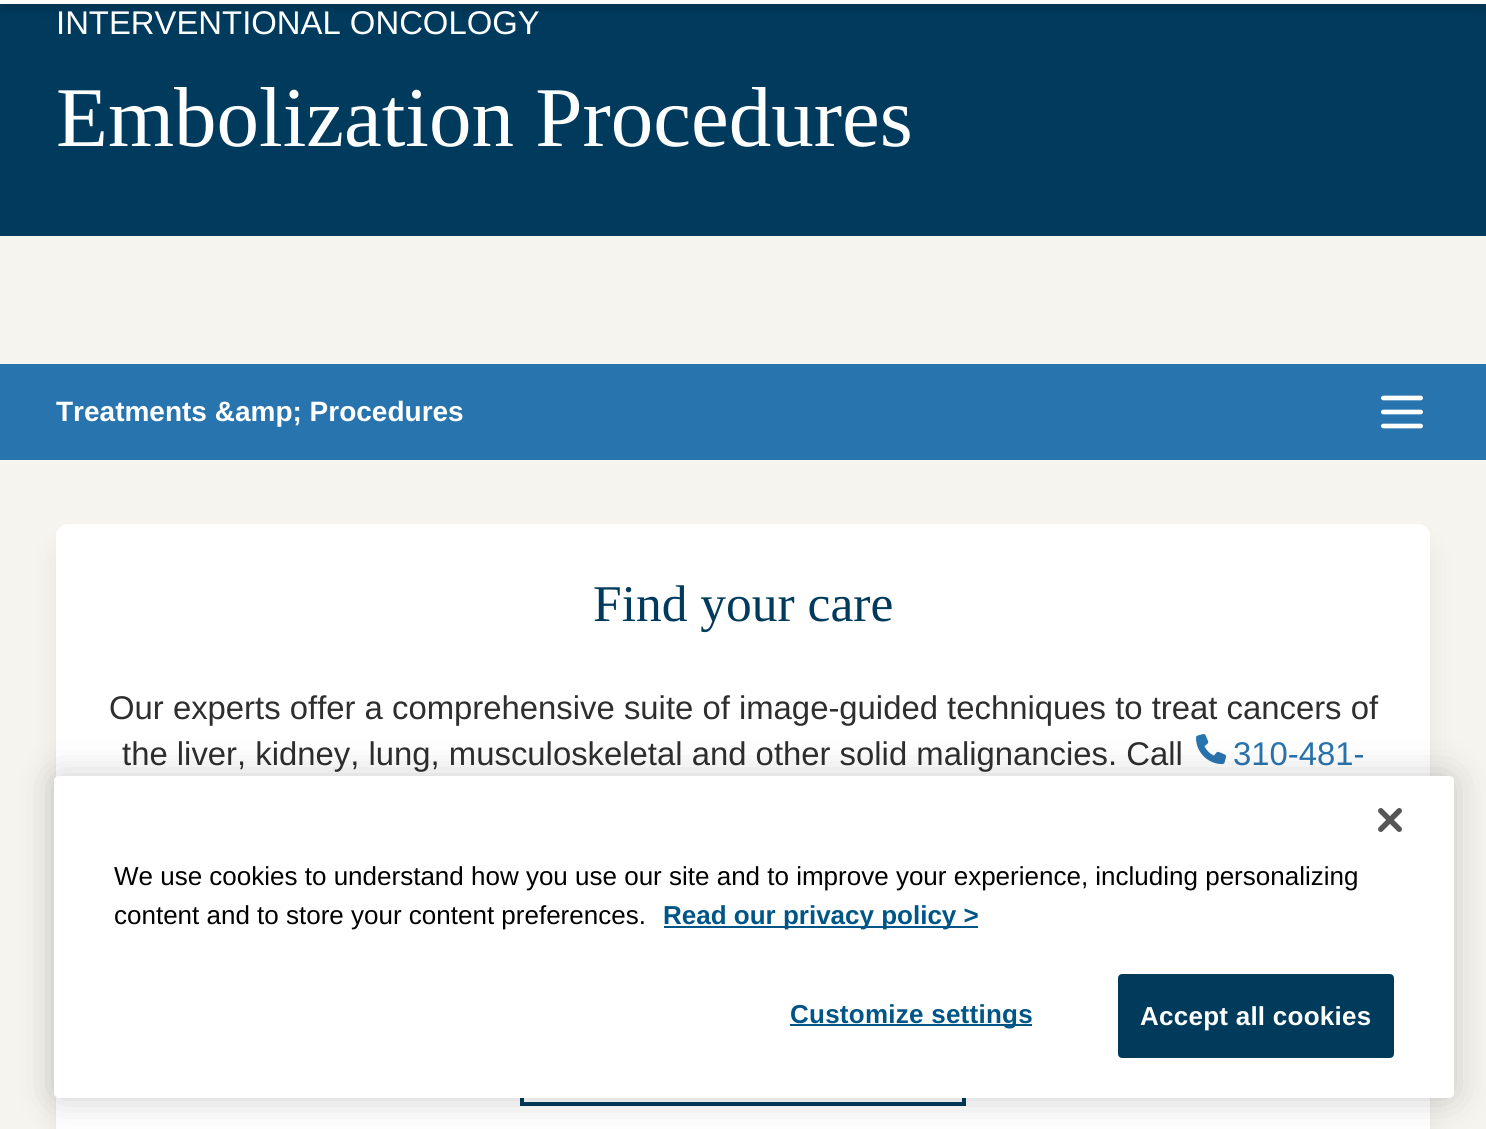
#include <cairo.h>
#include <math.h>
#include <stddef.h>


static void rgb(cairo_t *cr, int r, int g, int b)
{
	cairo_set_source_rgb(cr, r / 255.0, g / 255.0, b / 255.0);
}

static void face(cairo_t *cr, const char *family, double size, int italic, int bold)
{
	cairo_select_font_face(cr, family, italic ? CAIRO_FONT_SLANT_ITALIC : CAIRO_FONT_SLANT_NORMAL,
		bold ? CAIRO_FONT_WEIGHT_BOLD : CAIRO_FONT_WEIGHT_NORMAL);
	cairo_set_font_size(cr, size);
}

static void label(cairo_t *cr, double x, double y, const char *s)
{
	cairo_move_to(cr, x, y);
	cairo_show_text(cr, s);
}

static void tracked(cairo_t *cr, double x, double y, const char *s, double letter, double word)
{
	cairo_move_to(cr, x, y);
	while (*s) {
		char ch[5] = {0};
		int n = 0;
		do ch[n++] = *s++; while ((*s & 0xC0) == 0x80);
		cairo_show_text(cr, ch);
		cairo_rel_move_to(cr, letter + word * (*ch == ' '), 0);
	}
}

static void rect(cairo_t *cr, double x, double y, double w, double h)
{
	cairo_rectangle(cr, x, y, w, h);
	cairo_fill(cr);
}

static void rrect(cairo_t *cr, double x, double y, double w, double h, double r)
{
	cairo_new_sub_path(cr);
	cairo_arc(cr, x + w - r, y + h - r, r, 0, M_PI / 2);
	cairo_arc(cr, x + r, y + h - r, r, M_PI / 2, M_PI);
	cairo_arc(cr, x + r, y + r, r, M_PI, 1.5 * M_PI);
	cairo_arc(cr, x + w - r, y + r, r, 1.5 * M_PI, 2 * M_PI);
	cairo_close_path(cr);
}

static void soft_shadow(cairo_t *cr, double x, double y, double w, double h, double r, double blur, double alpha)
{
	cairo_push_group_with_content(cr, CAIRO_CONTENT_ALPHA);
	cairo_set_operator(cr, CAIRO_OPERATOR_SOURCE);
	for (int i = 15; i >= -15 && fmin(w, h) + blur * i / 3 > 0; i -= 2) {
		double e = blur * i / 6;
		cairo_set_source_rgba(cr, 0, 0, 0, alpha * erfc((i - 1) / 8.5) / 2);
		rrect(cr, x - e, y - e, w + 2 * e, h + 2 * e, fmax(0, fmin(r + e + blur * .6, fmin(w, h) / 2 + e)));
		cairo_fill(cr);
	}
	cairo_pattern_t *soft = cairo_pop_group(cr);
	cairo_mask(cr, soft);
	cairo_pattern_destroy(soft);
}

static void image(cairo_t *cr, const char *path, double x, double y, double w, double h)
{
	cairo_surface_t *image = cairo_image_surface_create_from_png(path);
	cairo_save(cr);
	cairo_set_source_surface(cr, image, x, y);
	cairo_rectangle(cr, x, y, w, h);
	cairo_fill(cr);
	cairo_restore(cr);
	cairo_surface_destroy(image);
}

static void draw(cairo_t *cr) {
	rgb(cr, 246, 244, 238);
	cairo_paint(cr);
	rgb(cr, 0, 58, 92);
	rect(cr, 0, 4, 1486, 232);
	rgb(cr, 0, 0, 0);
	soft_shadow(cr, 4, -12, 1478, 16, 0, 4, 0.1);
	soft_shadow(cr, 2, -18, 1482, 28, 0, 6, 0.1);
	rgb(cr, 255, 255, 255);
	rect(cr, 0, 0, 1486, 4);
	face(cr, "Liberation Sans", 32.85, 0, 0);
	label(cr, 56, 34, "INTERVENTIONAL ONCOLOGY");
	face(cr, "Liberation Serif", 85, 0, 0);
	label(cr, 56, 146, "Embolization Procedures");
	rgb(cr, 40, 116, 175);
	rect(cr, 0, 364, 1486, 96);
	face(cr, "Liberation Sans", 28, 0, 1);
	rgb(cr, 255, 255, 255);
	label(cr, 56, 421, "Treatments &amp; Procedures");
	image(cr, "image0.png", 1381, 395, 42, 34);
	rgb(cr, 0, 0, 0);
	soft_shadow(cr, 62, 550, 1362, 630, 6, 15, 0.1);
	rgb(cr, 255, 255, 255);
	rrect(cr, 56, 524, 1374, 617, 12);
	cairo_fill(cr);
	face(cr, "Liberation Serif", 51.5, 0, 0);
	rgb(cr, 0, 58, 92);
	label(cr, 593, 621, "Find your care");
	face(cr, "Liberation Sans", 32.85, 0, 0);
	rgb(cr, 46, 46, 46);
	label(cr, 109, 719, "Our experts offer a comprehensive suite of image-guided techniques to treat cancers of");
	label(cr, 122, 765, "the liver, kidney, lung, musculoskeletal and other solid malignancies. Call");
	image(cr, "image1.png", 1196, 734, 31, 31);
	rgb(cr, 40, 116, 175);
	label(cr, 1233, 765, "310-481-");
	cairo_rectangle(cr, 522, 1014, 442, 90);
	rgb(cr, 0, 58, 92);
	cairo_set_line_width(cr, 4);
	cairo_stroke(cr);
	rgb(cr, 0, 0, 0);
	soft_shadow(cr, 54, 776, 1400, 322, 5, 18, 0.2);
	rgb(cr, 255, 255, 255);
	rrect(cr, 54, 776, 1400, 322, 5);
	cairo_fill(cr);
	image(cr, "image2.png", 1378, 808, 24, 24);
	face(cr, "Liberation Sans", 26, 0, 0);
	rgb(cr, 0, 0, 0);
	label(cr, 114, 885, "We use cookies to understand how you use our site and to improve your experience, including personalizing");
	label(cr, 114, 924, "content and to store your content preferences.");
	rgb(cr, 0, 85, 135);
	rect(cr, 664, 926, 314, 2);
	face(cr, "Liberation Sans", 26, 0, 1);
	label(cr, 663, 924, "Read our privacy policy >");
	rect(cr, 790, 1024, 242, 2);
	tracked(cr, 790, 1023, "Customize settings", 0.25, 0);
	rgb(cr, 0, 59, 92);
	rrect(cr, 1119, 975, 274, 82, 3);
	cairo_fill_preserve(cr);
	cairo_set_line_width(cr, 2);
	cairo_stroke(cr);
	rgb(cr, 255, 255, 255);
	tracked(cr, 1140, 1025, "Accept all cookies", 0.25, 0);
}

int main(void) {
	cairo_surface_t *surface = cairo_image_surface_create(CAIRO_FORMAT_RGB24, 1486, 1129);
	cairo_t *cr = cairo_create(surface);
	cairo_font_options_t *options = cairo_font_options_create();
	cairo_font_options_set_hint_metrics(options, CAIRO_HINT_METRICS_OFF);
	cairo_font_options_set_hint_style(options, CAIRO_HINT_STYLE_NONE);
	cairo_set_font_options(cr, options);
	cairo_set_miter_limit(cr, 4);
	draw(cr);
	cairo_surface_write_to_png(surface, "render.png");
	cairo_font_options_destroy(options);
	cairo_destroy(cr);
	cairo_surface_destroy(surface);
	return 0;
}
